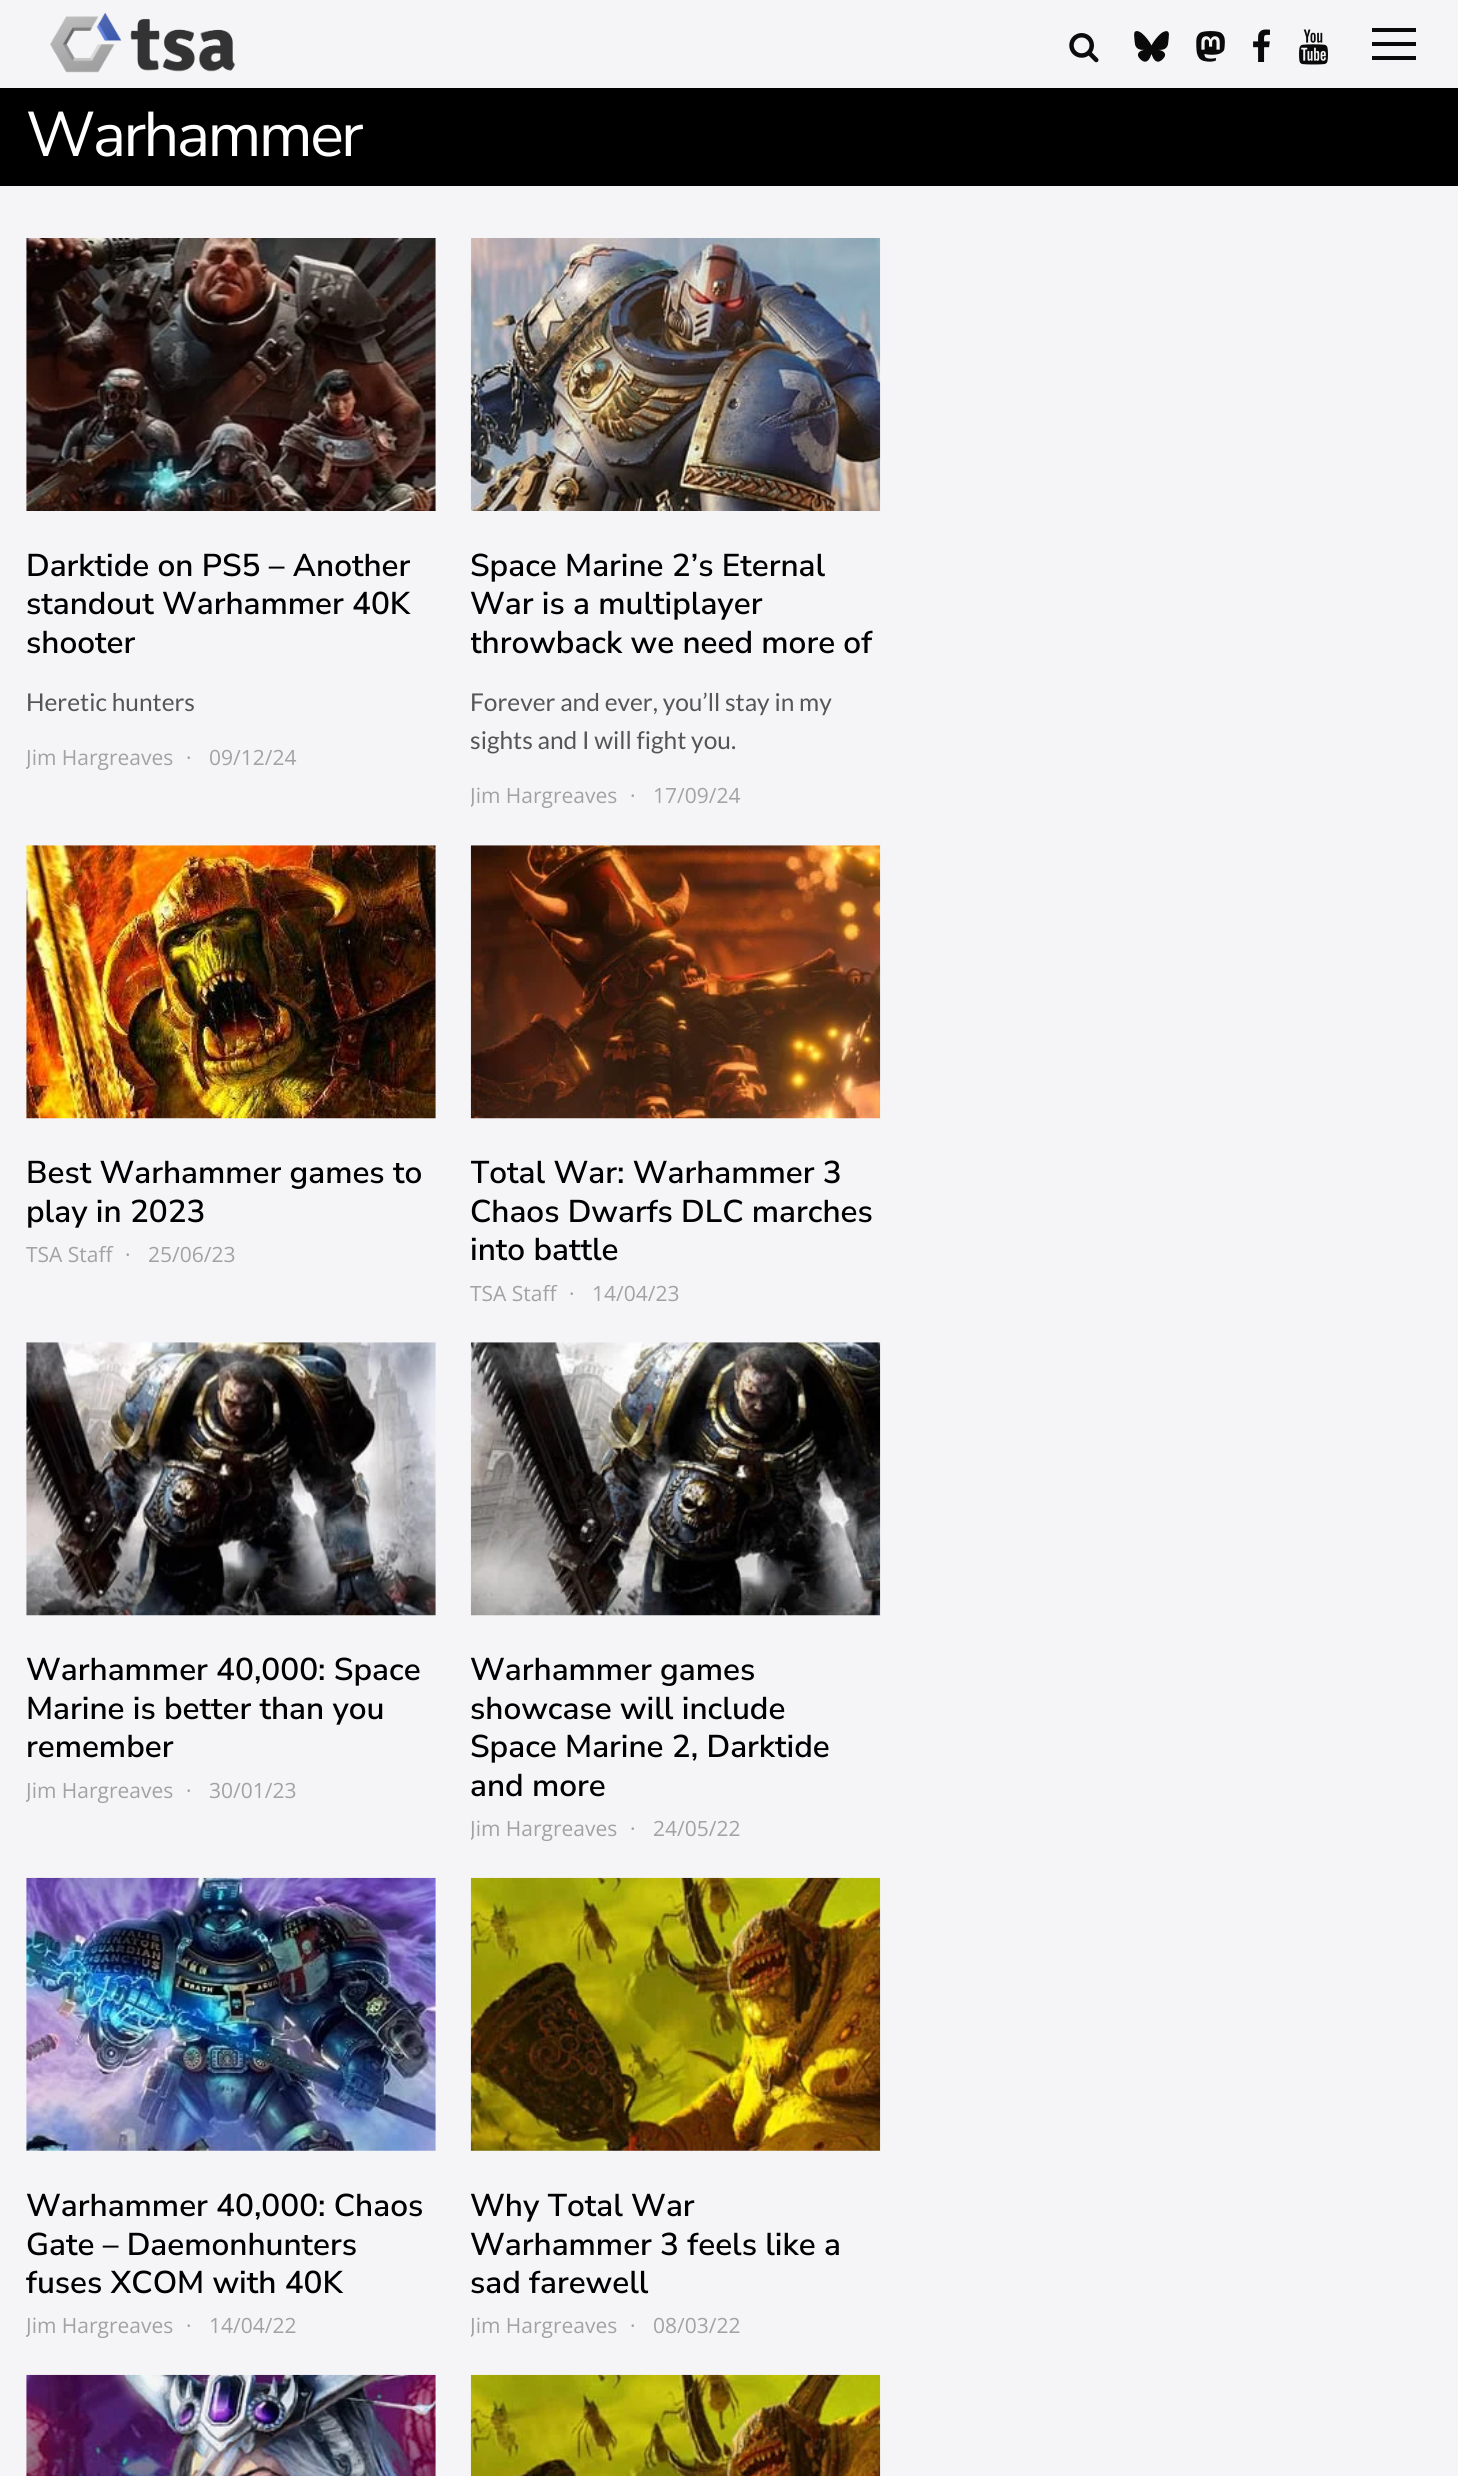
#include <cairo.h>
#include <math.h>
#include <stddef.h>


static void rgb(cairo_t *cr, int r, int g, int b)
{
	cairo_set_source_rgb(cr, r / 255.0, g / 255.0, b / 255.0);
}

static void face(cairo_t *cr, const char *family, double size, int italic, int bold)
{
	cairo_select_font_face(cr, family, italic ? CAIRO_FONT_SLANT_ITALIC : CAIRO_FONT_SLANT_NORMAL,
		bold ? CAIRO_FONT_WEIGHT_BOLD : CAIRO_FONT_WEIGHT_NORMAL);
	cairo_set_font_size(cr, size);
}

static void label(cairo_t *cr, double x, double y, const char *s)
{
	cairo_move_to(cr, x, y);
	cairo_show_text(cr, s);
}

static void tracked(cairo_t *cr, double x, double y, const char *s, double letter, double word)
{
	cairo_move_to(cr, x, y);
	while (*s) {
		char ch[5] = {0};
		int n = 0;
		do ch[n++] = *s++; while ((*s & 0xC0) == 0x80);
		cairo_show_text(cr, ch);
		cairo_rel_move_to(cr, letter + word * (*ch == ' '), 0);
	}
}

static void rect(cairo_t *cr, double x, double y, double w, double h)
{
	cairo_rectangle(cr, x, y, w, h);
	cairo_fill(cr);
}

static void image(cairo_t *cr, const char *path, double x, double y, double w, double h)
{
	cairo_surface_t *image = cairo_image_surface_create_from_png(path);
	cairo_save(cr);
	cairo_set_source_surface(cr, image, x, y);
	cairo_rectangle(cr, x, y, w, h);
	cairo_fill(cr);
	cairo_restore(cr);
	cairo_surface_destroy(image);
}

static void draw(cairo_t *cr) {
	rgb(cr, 0, 0, 0);
	cairo_paint(cr);
	rgb(cr, 245, 245, 247);
	rect(cr, 0, 0, 1458, 88);
	image(cr, "image0.png", 50, 12, 186, 61);
	image(cr, "image1.png", 1069, 33, 30, 30);
	image(cr, "image2.png", 1134, 31, 35, 31);
	image(cr, "image3.png", 1196, 31, 29, 31);
	image(cr, "image4.png", 1253, 29, 17, 33);
	image(cr, "image5.png", 1299, 29, 29, 36);
	rgb(cr, 10, 10, 10);
	rect(cr, 1372, 42, 44, 4);
	rect(cr, 1372, 28, 44, 4);
	rect(cr, 1372, 56, 44, 4);
	face(cr, "Nunito Sans", 63, 0, 0);
	rgb(cr, 255, 255, 255);
	tracked(cr, 26, 156, "Warhammer", -2.6, 0);
	rgb(cr, 245, 245, 247);
	rect(cr, 0, 186, 1458, 2290);
	image(cr, "image6.png", 26, 238, 410, 273);
	face(cr, "Nunito Sans SemiBold", 31.5, 0, 0);
	rgb(cr, 0, 0, 0);
	label(cr, 26, 576, "Darktide on PS5 – Another");
	label(cr, 26, 614, "standout Warhammer 40K");
	label(cr, 26, 653, "shooter");
	face(cr, "Lato", 24.5, 0, 0);
	rgb(cr, 85, 85, 87);
	label(cr, 26, 711, "Heretic hunters");
	cairo_save(cr);
	cairo_rectangle(cr, 26, 546, 410, 226);
	cairo_clip(cr);
	face(cr, "Open Sans", 21, 0, 0);
	rgb(cr, 162, 162, 162);
	label(cr, 26, 765, "Jim Hargreaves");
	cairo_restore(cr);
	face(cr, "Open Sans", 21, 0, 0);
	rgb(cr, 162, 162, 162);
	label(cr, 186, 765, "·");
	label(cr, 209, 765, "09/12/24");
	image(cr, "image7.png", 470, 238, 411, 273);
	face(cr, "Nunito Sans SemiBold", 31.5, 0, 0);
	rgb(cr, 0, 0, 0);
	label(cr, 470, 576, "Space Marine 2’s Eternal");
	label(cr, 470, 614, "War is a multiplayer");
	cairo_save(cr);
	cairo_rectangle(cr, 471, 546, 409, 264);
	cairo_clip(cr);
	label(cr, 470, 653, "throwback we need more of");
	cairo_restore(cr);
	face(cr, "Lato", 24.5, 0, 0);
	rgb(cr, 85, 85, 87);
	label(cr, 470, 711, "Forever and ever, you’ll stay in my");
	label(cr, 470, 749, "sights and I will fight you.");
	cairo_save(cr);
	cairo_rectangle(cr, 471, 546, 409, 264);
	cairo_clip(cr);
	face(cr, "Open Sans", 21, 0, 0);
	rgb(cr, 162, 162, 162);
	label(cr, 470, 803, "Jim Hargreaves");
	cairo_restore(cr);
	face(cr, "Open Sans", 21, 0, 0);
	rgb(cr, 162, 162, 162);
	label(cr, 630, 803, "·");
	label(cr, 653, 803, "17/09/24");
	image(cr, "image8.png", 26, 845, 410, 274);
	face(cr, "Nunito Sans SemiBold", 31.5, 0, 0);
	rgb(cr, 0, 0, 0);
	label(cr, 26, 1183, "Best Warhammer games to");
	label(cr, 26, 1222, "play in 2023");
	face(cr, "Open Sans", 21, 0, 0);
	rgb(cr, 162, 162, 162);
	label(cr, 26, 1262, "TSA Staff");
	label(cr, 125, 1262, "·");
	label(cr, 148, 1262, "25/06/23");
	image(cr, "image9.png", 470, 845, 411, 274);
	cairo_save(cr);
	cairo_rectangle(cr, 471, 1153, 409, 154);
	cairo_clip(cr);
	face(cr, "Nunito Sans SemiBold", 31.5, 0, 0);
	rgb(cr, 0, 0, 0);
	label(cr, 470, 1183, "Total War: Warhammer 3");
	cairo_restore(cr);
	face(cr, "Nunito Sans SemiBold", 31.5, 0, 0);
	rgb(cr, 0, 0, 0);
	label(cr, 470, 1222, "Chaos Dwarfs DLC marches");
	label(cr, 470, 1260, "into battle");
	face(cr, "Open Sans", 21, 0, 0);
	rgb(cr, 162, 162, 162);
	label(cr, 470, 1301, "TSA Staff");
	label(cr, 569, 1301, "·");
	label(cr, 592, 1301, "14/04/23");
	image(cr, "image10.png", 26, 1342, 410, 274);
	face(cr, "Nunito Sans SemiBold", 31.5, 0, 0);
	rgb(cr, 0, 0, 0);
	label(cr, 26, 1680, "Warhammer 40,000: Space");
	label(cr, 26, 1719, "Marine is better than you");
	label(cr, 26, 1757, "remember");
	cairo_save(cr);
	cairo_rectangle(cr, 26, 1650, 410, 154);
	cairo_clip(cr);
	face(cr, "Open Sans", 21, 0, 0);
	rgb(cr, 162, 162, 162);
	label(cr, 26, 1798, "Jim Hargreaves");
	cairo_restore(cr);
	face(cr, "Open Sans", 21, 0, 0);
	rgb(cr, 162, 162, 162);
	label(cr, 186, 1798, "·");
	label(cr, 209, 1798, "30/01/23");
	image(cr, "image11.png", 470, 1342, 411, 274);
	face(cr, "Nunito Sans SemiBold", 31.5, 0, 0);
	rgb(cr, 0, 0, 0);
	label(cr, 470, 1680, "Warhammer games");
	label(cr, 470, 1719, "showcase will include");
	label(cr, 470, 1757, "Space Marine 2, Darktide");
	label(cr, 470, 1796, "and more");
	cairo_save(cr);
	cairo_rectangle(cr, 471, 1650, 409, 193);
	cairo_clip(cr);
	face(cr, "Open Sans", 21, 0, 0);
	rgb(cr, 162, 162, 162);
	label(cr, 470, 1836, "Jim Hargreaves");
	cairo_restore(cr);
	face(cr, "Open Sans", 21, 0, 0);
	rgb(cr, 162, 162, 162);
	label(cr, 630, 1836, "·");
	label(cr, 653, 1836, "24/05/22");
	image(cr, "image12.png", 26, 1877, 410, 274);
	face(cr, "Nunito Sans SemiBold", 31.5, 0, 0);
	rgb(cr, 0, 0, 0);
	label(cr, 26, 2216, "Warhammer 40,000: Chaos");
	label(cr, 26, 2255, "Gate – Daemonhunters");
	label(cr, 26, 2293, "fuses XCOM with 40K");
	cairo_save(cr);
	cairo_rectangle(cr, 26, 2186, 410, 154);
	cairo_clip(cr);
	face(cr, "Open Sans", 21, 0, 0);
	rgb(cr, 162, 162, 162);
	label(cr, 26, 2333, "Jim Hargreaves");
	cairo_restore(cr);
	face(cr, "Open Sans", 21, 0, 0);
	rgb(cr, 162, 162, 162);
	label(cr, 186, 2333, "·");
	label(cr, 209, 2333, "14/04/22");
	image(cr, "image13.png", 470, 1877, 411, 274);
	face(cr, "Nunito Sans SemiBold", 31.5, 0, 0);
	rgb(cr, 0, 0, 0);
	label(cr, 470, 2216, "Why Total War");
	label(cr, 470, 2255, "Warhammer 3 feels like a");
	label(cr, 470, 2293, "sad farewell");
	cairo_save(cr);
	cairo_rectangle(cr, 471, 2186, 409, 154);
	cairo_clip(cr);
	face(cr, "Open Sans", 21, 0, 0);
	rgb(cr, 162, 162, 162);
	label(cr, 470, 2333, "Jim Hargreaves");
	cairo_restore(cr);
	face(cr, "Open Sans", 21, 0, 0);
	rgb(cr, 162, 162, 162);
	label(cr, 630, 2333, "·");
	label(cr, 653, 2333, "08/03/22");
	image(cr, "image14.png", 26, 2374, 410, 102);
	image(cr, "image15.png", 470, 2374, 411, 102);
}

int main(void) {
	cairo_surface_t *surface = cairo_image_surface_create(CAIRO_FORMAT_RGB24, 1458, 2476);
	cairo_t *cr = cairo_create(surface);
	cairo_font_options_t *options = cairo_font_options_create();
	cairo_font_options_set_hint_metrics(options, CAIRO_HINT_METRICS_OFF);
	cairo_font_options_set_hint_style(options, CAIRO_HINT_STYLE_NONE);
	cairo_set_font_options(cr, options);
	cairo_set_miter_limit(cr, 4);
	draw(cr);
	cairo_surface_write_to_png(surface, "render.png");
	cairo_font_options_destroy(options);
	cairo_destroy(cr);
	cairo_surface_destroy(surface);
	return 0;
}
